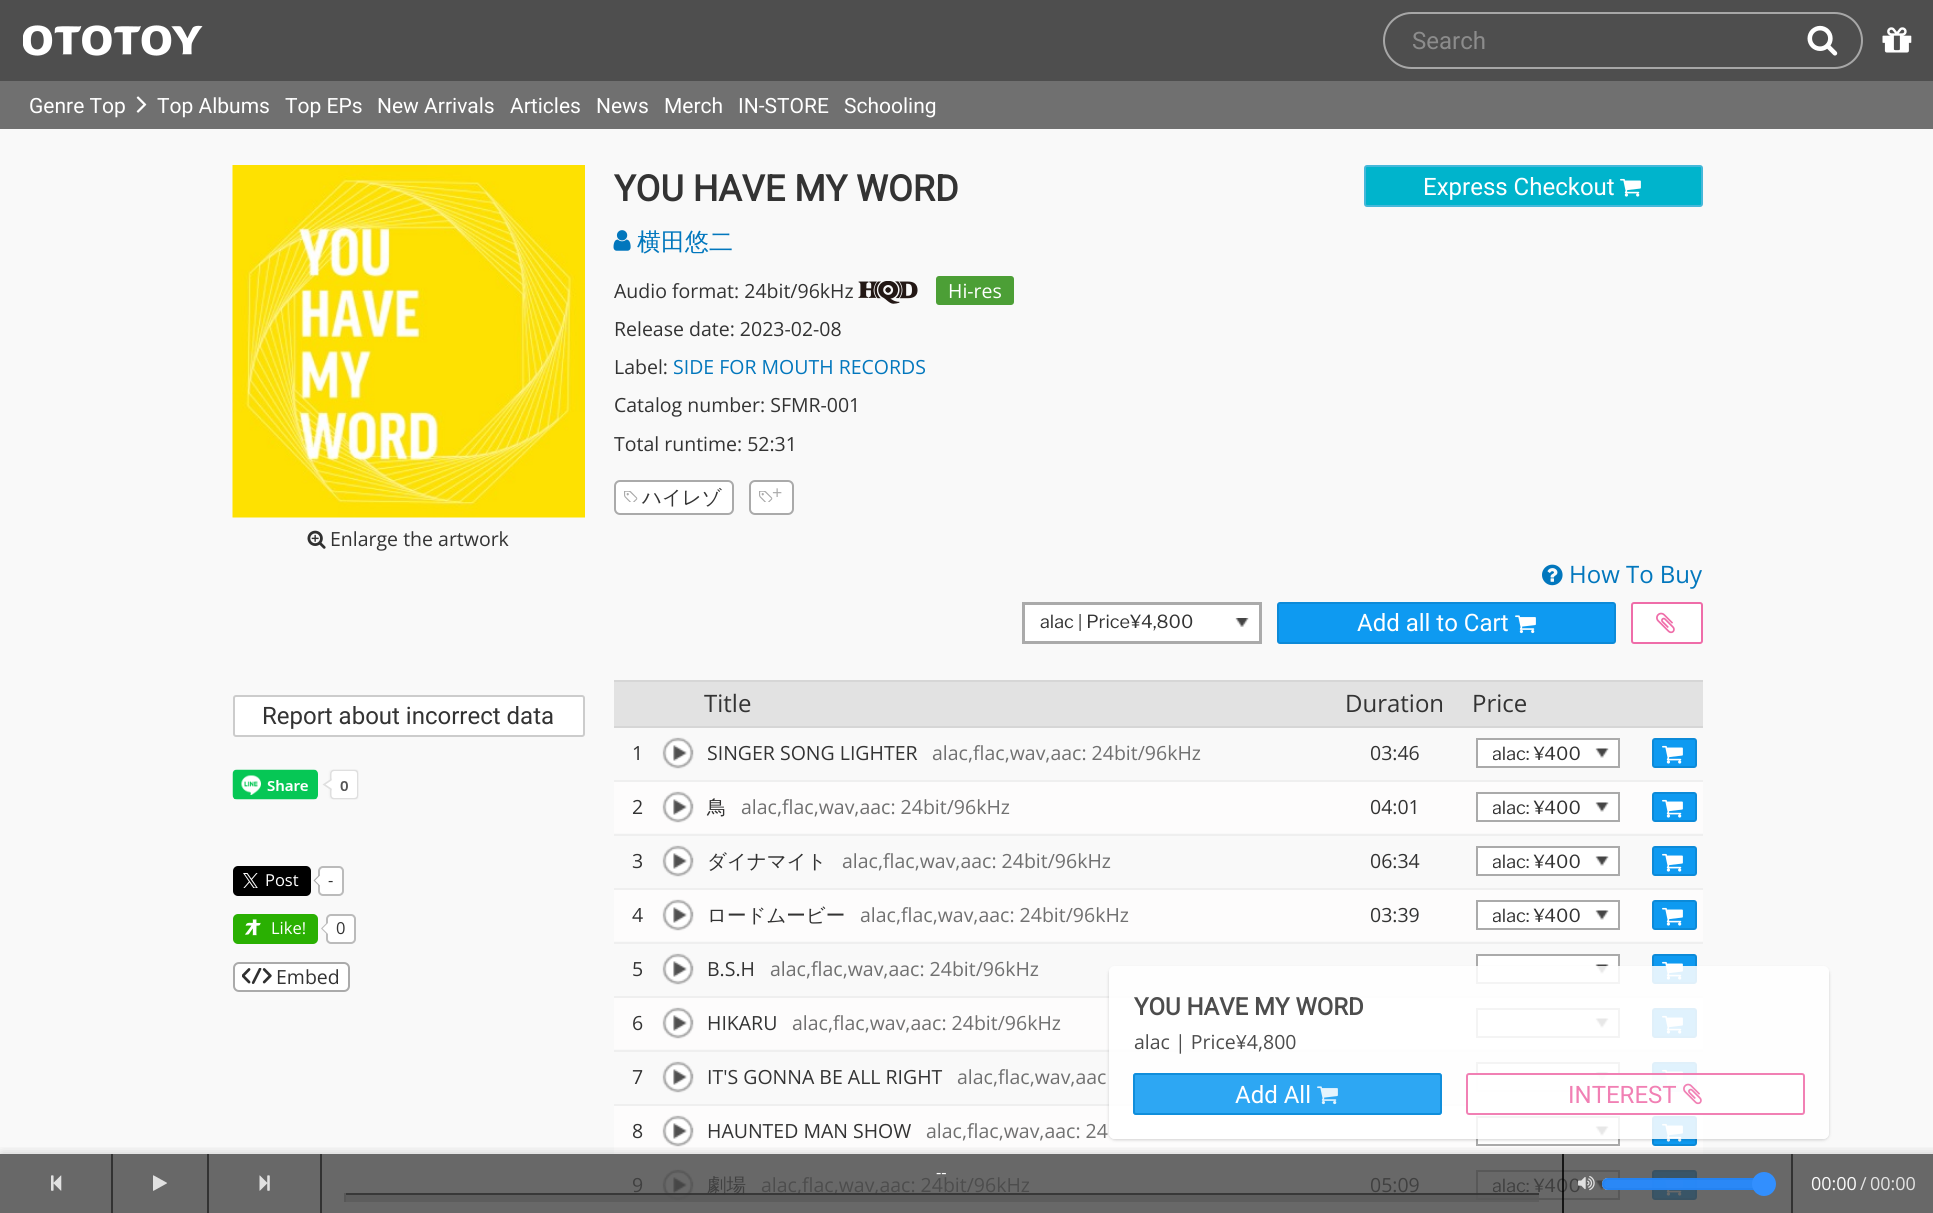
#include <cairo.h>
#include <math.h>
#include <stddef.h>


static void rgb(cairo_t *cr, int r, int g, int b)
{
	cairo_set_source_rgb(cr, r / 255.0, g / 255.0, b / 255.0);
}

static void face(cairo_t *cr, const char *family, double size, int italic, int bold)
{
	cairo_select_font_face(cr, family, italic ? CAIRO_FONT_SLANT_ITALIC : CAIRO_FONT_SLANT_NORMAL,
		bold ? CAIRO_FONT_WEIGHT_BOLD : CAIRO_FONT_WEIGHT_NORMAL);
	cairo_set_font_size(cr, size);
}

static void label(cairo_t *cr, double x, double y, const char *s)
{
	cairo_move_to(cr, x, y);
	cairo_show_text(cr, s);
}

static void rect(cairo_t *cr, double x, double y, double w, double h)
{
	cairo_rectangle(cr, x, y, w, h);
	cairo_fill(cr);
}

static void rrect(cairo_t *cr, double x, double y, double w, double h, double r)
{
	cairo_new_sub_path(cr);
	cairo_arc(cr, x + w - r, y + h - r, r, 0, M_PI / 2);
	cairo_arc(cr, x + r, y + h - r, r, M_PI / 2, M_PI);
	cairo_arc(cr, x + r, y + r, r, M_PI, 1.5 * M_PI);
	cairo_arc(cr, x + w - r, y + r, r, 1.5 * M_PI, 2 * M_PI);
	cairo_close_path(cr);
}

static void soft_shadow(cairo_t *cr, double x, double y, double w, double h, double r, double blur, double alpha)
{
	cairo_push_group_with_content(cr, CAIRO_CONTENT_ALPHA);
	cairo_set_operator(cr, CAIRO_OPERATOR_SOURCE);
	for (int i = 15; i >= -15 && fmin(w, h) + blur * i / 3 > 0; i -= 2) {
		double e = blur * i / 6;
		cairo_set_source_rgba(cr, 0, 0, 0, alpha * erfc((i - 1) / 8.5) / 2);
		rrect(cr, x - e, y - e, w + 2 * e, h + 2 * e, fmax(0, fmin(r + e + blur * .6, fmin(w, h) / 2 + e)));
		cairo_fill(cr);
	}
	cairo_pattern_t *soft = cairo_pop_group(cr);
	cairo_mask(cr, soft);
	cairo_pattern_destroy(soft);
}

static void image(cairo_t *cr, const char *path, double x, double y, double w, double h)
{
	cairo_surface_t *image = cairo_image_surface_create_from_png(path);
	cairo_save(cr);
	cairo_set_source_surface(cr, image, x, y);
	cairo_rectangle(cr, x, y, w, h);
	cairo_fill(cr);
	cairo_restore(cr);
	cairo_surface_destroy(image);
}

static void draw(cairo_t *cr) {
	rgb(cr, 249, 249, 249);
	cairo_paint(cr);
	rgb(cr, 104, 104, 104);
	rect(cr, 0, 1154, 1933, 59);
	rgb(cr, 78, 78, 78);
	rect(cr, 0, 0, 1933, 81);
	image(cr, "image0.png", 23, 25, 180, 31);
	rrect(cr, 1384, 13, 478, 55, 27.5);
	rgb(cr, 167, 167, 167);
	cairo_stroke(cr);
	face(cr, "Roboto", 24, 0, 0);
	rgb(cr, 140, 140, 140);
	label(cr, 1412, 49, "Search");
	image(cr, "image1.png", 1807, 25, 31, 31);
	image(cr, "image2.png", 1882, 27, 30, 26);
	rgb(cr, 112, 112, 112);
	rect(cr, 0, 81, 1933, 48);
	face(cr, "Roboto", 21, 0, 0);
	rgb(cr, 255, 255, 255);
	label(cr, 29, 113, "Genre Top");
	image(cr, "image3.png", 136, 96, 11, 17);
	label(cr, 157, 113, "Top Albums");
	label(cr, 285, 113, "Top EPs");
	label(cr, 377, 113, "New Arrivals");
	label(cr, 510, 113, "Articles");
	label(cr, 596, 113, "News");
	label(cr, 664, 113, "Merch");
	label(cr, 738, 113, "IN-STORE");
	label(cr, 844, 113, "Schooling");
	face(cr, "Roboto", 36, 0, 1);
	rgb(cr, 51, 51, 51);
	label(cr, 614, 201, "YOU HAVE MY WORD");
	rgb(cr, 0, 180, 204);
	rrect(cr, 1365, 166, 337, 40, 2);
	cairo_fill_preserve(cr);
	rgb(cr, 70, 184, 218);
	cairo_stroke(cr);
	face(cr, "Roboto", 24, 0, 0);
	rgb(cr, 255, 255, 255);
	label(cr, 1423, 195, "Express Checkout");
	image(cr, "image4.png", 1620, 178, 21, 19);
	image(cr, "image5.png", 613, 230, 18, 21);
	face(cr, "WenQuanYi Zen Hei Medium", 24, 0, 0);
	rgb(cr, 2, 119, 189);
	label(cr, 637, 250, "横田悠二");
	face(cr, "Open Sans", 19.5, 0, 0);
	rgb(cr, 51, 51, 51);
	label(cr, 614, 298, "Audio format: 24bit/96kHz");
	image(cr, "image6.png", 858, 281, 60, 23);
	rgb(cr, 76, 159, 54);
	rrect(cr, 936, 276, 78, 29, 3);
	cairo_fill(cr);
	rgb(cr, 255, 255, 255);
	label(cr, 948, 298, "Hi-res");
	rgb(cr, 51, 51, 51);
	label(cr, 614, 336, "Release date: 2023-02-08");
	label(cr, 614, 374, "Label:");
	rgb(cr, 2, 119, 189);
	label(cr, 673, 374, "SIDE FOR MOUTH RECORDS");
	rgb(cr, 51, 51, 51);
	label(cr, 614, 412, "Catalog number: SFMR-001");
	label(cr, 614, 451, "Total runtime: 52:31");
	rgb(cr, 255, 255, 255);
	rrect(cr, 615, 481, 118, 33, 5);
	cairo_fill_preserve(cr);
	rgb(cr, 170, 170, 170);
	cairo_stroke(cr);
	image(cr, "image7.png", 624, 491, 14, 11);
	face(cr, "WenQuanYi Zen Hei Medium", 19.5, 0, 0);
	rgb(cr, 51, 51, 51);
	label(cr, 642, 504, "ハイレゾ");
	rgb(cr, 255, 255, 255);
	rrect(cr, 750, 481, 43, 33, 5);
	cairo_fill_preserve(cr);
	rgb(cr, 170, 170, 170);
	cairo_stroke(cr);
	image(cr, "image8.png", 759, 491, 14, 11);
	face(cr, "Open Sans", 18, 0, 0);
	label(cr, 772, 499, "+");
	image(cr, "image9.png", 232, 165, 353, 353);
	image(cr, "image10.png", 307, 530, 19, 19);
	face(cr, "Open Sans", 19.5, 0, 0);
	rgb(cr, 51, 51, 51);
	label(cr, 330, 546, "Enlarge the artwork");
	image(cr, "image11.png", 1542, 564, 21, 22);
	face(cr, "Open Sans", 24, 0, 0);
	rgb(cr, 2, 119, 189);
	label(cr, 1569, 583, "How To Buy");
	rgb(cr, 255, 255, 255);
	rect(cr, 1025, 605, 234, 36);
	image(cr, "image12.png", 1235, 618, 14, 9);
	cairo_rectangle(cr, 1023.5, 603.5, 237, 39);
	rgb(cr, 170, 170, 170);
	cairo_set_line_width(cr, 3);
	cairo_stroke(cr);
	cairo_save(cr);
	cairo_rectangle(cr, 1040, 614, 183, 18);
	cairo_clip(cr);
	face(cr, "Libre Franklin Thin", 18, 0, 0);
	rgb(cr, 51, 51, 51);
	label(cr, 1040, 628, "alac | Price¥4,800");
	cairo_restore(cr);
	rgb(cr, 14, 154, 241);
	rrect(cr, 1278, 603, 337, 40, 2);
	cairo_fill_preserve(cr);
	rgb(cr, 12, 138, 216);
	cairo_set_line_width(cr, 2);
	cairo_stroke(cr);
	face(cr, "Roboto", 24, 0, 0);
	rgb(cr, 255, 255, 255);
	label(cr, 1357, 631, "Add all to Cart");
	image(cr, "image13.png", 1515, 615, 21, 19);
	rrect(cr, 1632, 603, 70, 40, 2);
	cairo_fill_preserve(cr);
	rgb(cr, 239, 109, 169);
	cairo_stroke(cr);
	image(cr, "image14.png", 1656, 612, 19, 22);
	rgb(cr, 255, 255, 255);
	rrect(cr, 234, 696, 350, 40, 2);
	cairo_fill_preserve(cr);
	rgb(cr, 204, 204, 204);
	cairo_stroke(cr);
	rgb(cr, 51, 51, 51);
	label(cr, 262, 724, "Report about incorrect data");
	image(cr, "image15.png", 232, 769, 127, 31);
	rgb(cr, 0, 0, 0);
	rrect(cr, 233, 866, 78, 30, 5);
	cairo_fill(cr);
	image(cr, "image16.png", 243, 873, 15, 15);
	face(cr, "Open Sans", 16.5, 0, 0);
	rgb(cr, 255, 255, 255);
	label(cr, 265, 886, "Post");
	rrect(cr, 319, 867, 24, 28, 4);
	cairo_fill_preserve(cr);
	rgb(cr, 187, 187, 187);
	cairo_stroke(cr);
	rgb(cr, 170, 170, 170);
	cairo_new_path(cr);
	cairo_move_to(cr, 319.5, 874.5);
	cairo_line_to(cr, 319.5, 886.5);
	cairo_line_to(cr, 313.5, 880.5);
	cairo_close_path(cr);
	cairo_fill(cr);
	rgb(cr, 255, 255, 255);
	cairo_new_path(cr);
	cairo_move_to(cr, 321, 874.5);
	cairo_line_to(cr, 321, 886.5);
	cairo_line_to(cr, 315, 880.5);
	cairo_close_path(cr);
	cairo_fill(cr);
	rgb(cr, 51, 51, 51);
	label(cr, 328, 886, "-");
	rgb(cr, 42, 176, 2);
	rrect(cr, 233, 914, 85, 30, 5);
	cairo_fill(cr);
	image(cr, "image17.png", 245, 919, 16, 17);
	rgb(cr, 255, 255, 255);
	label(cr, 271, 934, "Like!");
	rrect(cr, 327, 915, 28, 28, 4);
	cairo_fill_preserve(cr);
	rgb(cr, 187, 187, 187);
	cairo_stroke(cr);
	cairo_new_path(cr);
	cairo_move_to(cr, 327, 922.5);
	cairo_line_to(cr, 327, 934.5);
	cairo_line_to(cr, 321, 928.5);
	cairo_close_path(cr);
	cairo_fill(cr);
	rgb(cr, 255, 255, 255);
	cairo_new_path(cr);
	cairo_move_to(cr, 328.5, 922.5);
	cairo_line_to(cr, 328.5, 934.5);
	cairo_line_to(cr, 322.5, 928.5);
	cairo_close_path(cr);
	cairo_fill(cr);
	rgb(cr, 51, 51, 51);
	label(cr, 336, 934, "0");
	rgb(cr, 255, 255, 255);
	rrect(cr, 234, 963, 115, 28, 5);
	cairo_fill_preserve(cr);
	rgb(cr, 170, 170, 170);
	cairo_stroke(cr);
	image(cr, "image18.png", 242, 968, 30, 16);
	face(cr, "Open Sans", 19.5, 0, 0);
	rgb(cr, 51, 51, 51);
	label(cr, 276, 984, "Embed");
	rgb(cr, 226, 226, 226);
	rect(cr, 614, 682, 1089, 44);
	face(cr, "Open Sans", 24, 0, 0);
	rgb(cr, 51, 51, 51);
	label(cr, 704, 712, "Title");
	label(cr, 1345, 712, "Duration");
	rgb(cr, 214, 214, 214);
	rect(cr, 614, 680, 1089, 2);
	rect(cr, 614, 726, 1089, 2);
	rgb(cr, 51, 51, 51);
	label(cr, 1472, 712, "Price");
	face(cr, "Open Sans", 19.5, 0, 0);
	label(cr, 632, 760, "1");
	image(cr, "image19.png", 662, 737, 32, 32);
	label(cr, 707, 760, "SINGER SONG LIGHTER");
	rgb(cr, 112, 112, 112);
	label(cr, 932, 760, "alac,flac,wav,aac: 24bit/96kHz");
	rgb(cr, 51, 51, 51);
	label(cr, 1370, 760, "03:46");
	rgb(cr, 255, 255, 255);
	rect(cr, 1478, 740, 140, 26);
	image(cr, "image20.png", 1595, 748, 14, 10);
	cairo_rectangle(cr, 1477, 739, 142, 28);
	rgb(cr, 170, 170, 170);
	cairo_stroke(cr);
	cairo_save(cr);
	cairo_rectangle(cr, 1493, 744, 90, 18);
	cairo_clip(cr);
	face(cr, "Libre Franklin Thin", 18, 0, 0);
	rgb(cr, 51, 51, 51);
	label(cr, 1492, 760, "alac: ¥400");
	cairo_restore(cr);
	rgb(cr, 14, 154, 241);
	rrect(cr, 1653, 739, 43, 28, 2);
	cairo_fill_preserve(cr);
	rgb(cr, 12, 138, 216);
	cairo_stroke(cr);
	image(cr, "image21.png", 1662, 745, 21, 19);
	rgb(cr, 253, 252, 252);
	rect(cr, 614, 782, 1089, 51);
	rgb(cr, 239, 239, 239);
	rect(cr, 614, 780, 1089, 2);
	rgb(cr, 51, 51, 51);
	label(cr, 632, 814, "2");
	image(cr, "image22.png", 662, 791, 32, 32);
	face(cr, "WenQuanYi Zen Hei Medium", 19.5, 0, 0);
	label(cr, 707, 814, "鳥");
	face(cr, "Open Sans", 19.5, 0, 0);
	rgb(cr, 112, 112, 112);
	label(cr, 741, 814, "alac,flac,wav,aac: 24bit/96kHz");
	rgb(cr, 51, 51, 51);
	label(cr, 1370, 814, "04:01");
	rgb(cr, 255, 255, 255);
	rect(cr, 1478, 794, 140, 26);
	image(cr, "image20.png", 1595, 802, 14, 10);
	cairo_rectangle(cr, 1477, 793, 142, 28);
	rgb(cr, 170, 170, 170);
	cairo_stroke(cr);
	cairo_save(cr);
	cairo_rectangle(cr, 1493, 798, 90, 18);
	cairo_clip(cr);
	face(cr, "Libre Franklin Thin", 18, 0, 0);
	rgb(cr, 51, 51, 51);
	label(cr, 1492, 814, "alac: ¥400");
	cairo_restore(cr);
	rgb(cr, 14, 154, 241);
	rrect(cr, 1653, 793, 43, 28, 2);
	cairo_fill_preserve(cr);
	rgb(cr, 12, 138, 216);
	cairo_stroke(cr);
	image(cr, "image21.png", 1662, 799, 21, 19);
	rgb(cr, 239, 239, 239);
	rect(cr, 614, 834, 1089, 2);
	rgb(cr, 51, 51, 51);
	label(cr, 632, 868, "3");
	image(cr, "image19.png", 662, 845, 32, 32);
	face(cr, "WenQuanYi Zen Hei Medium", 19.5, 0, 0);
	label(cr, 707, 868, "ダイナマイト");
	face(cr, "Open Sans", 19.5, 0, 0);
	rgb(cr, 112, 112, 112);
	label(cr, 842, 868, "alac,flac,wav,aac: 24bit/96kHz");
	rgb(cr, 51, 51, 51);
	label(cr, 1370, 868, "06:34");
	rgb(cr, 255, 255, 255);
	rect(cr, 1478, 848, 140, 26);
	image(cr, "image20.png", 1595, 856, 14, 10);
	cairo_rectangle(cr, 1477, 847, 142, 28);
	rgb(cr, 170, 170, 170);
	cairo_stroke(cr);
	cairo_save(cr);
	cairo_rectangle(cr, 1493, 852, 90, 18);
	cairo_clip(cr);
	face(cr, "Libre Franklin Thin", 18, 0, 0);
	rgb(cr, 51, 51, 51);
	label(cr, 1492, 868, "alac: ¥400");
	cairo_restore(cr);
	rgb(cr, 14, 154, 241);
	rrect(cr, 1653, 847, 43, 28, 2);
	cairo_fill_preserve(cr);
	rgb(cr, 12, 138, 216);
	cairo_stroke(cr);
	image(cr, "image21.png", 1662, 853, 21, 19);
	rgb(cr, 253, 252, 252);
	rect(cr, 614, 890, 1089, 51);
	rgb(cr, 239, 239, 239);
	rect(cr, 614, 888, 1089, 2);
	rgb(cr, 51, 51, 51);
	label(cr, 632, 922, "4");
	image(cr, "image22.png", 662, 899, 32, 32);
	face(cr, "WenQuanYi Zen Hei Medium", 19.5, 0, 0);
	label(cr, 707, 922, "ロードムービー");
	face(cr, "Open Sans", 19.5, 0, 0);
	rgb(cr, 112, 112, 112);
	label(cr, 860, 922, "alac,flac,wav,aac: 24bit/96kHz");
	rgb(cr, 51, 51, 51);
	label(cr, 1370, 922, "03:39");
	rgb(cr, 255, 255, 255);
	rect(cr, 1478, 902, 140, 26);
	image(cr, "image20.png", 1595, 910, 14, 10);
	cairo_rectangle(cr, 1477, 901, 142, 28);
	rgb(cr, 170, 170, 170);
	cairo_stroke(cr);
	cairo_save(cr);
	cairo_rectangle(cr, 1493, 906, 90, 18);
	cairo_clip(cr);
	face(cr, "Libre Franklin Thin", 18, 0, 0);
	rgb(cr, 51, 51, 51);
	label(cr, 1492, 922, "alac: ¥400");
	cairo_restore(cr);
	rgb(cr, 14, 154, 241);
	rrect(cr, 1653, 901, 43, 28, 2);
	cairo_fill_preserve(cr);
	rgb(cr, 12, 138, 216);
	cairo_stroke(cr);
	image(cr, "image21.png", 1662, 907, 21, 19);
	rgb(cr, 239, 239, 239);
	rect(cr, 614, 942, 1089, 2);
	rgb(cr, 51, 51, 51);
	label(cr, 632, 976, "5");
	image(cr, "image19.png", 662, 953, 32, 32);
	label(cr, 707, 976, "B.S.H");
	rgb(cr, 112, 112, 112);
	label(cr, 770, 976, "alac,flac,wav,aac: 24bit/96kHz");
	rgb(cr, 255, 255, 255);
	rect(cr, 1478, 956, 140, 26);
	image(cr, "image20.png", 1595, 964, 14, 10);
	cairo_rectangle(cr, 1477, 955, 142, 28);
	rgb(cr, 170, 170, 170);
	cairo_stroke(cr);
	rgb(cr, 14, 154, 241);
	rrect(cr, 1653, 955, 43, 28, 2);
	cairo_fill_preserve(cr);
	rgb(cr, 12, 138, 216);
	cairo_stroke(cr);
	image(cr, "image21.png", 1662, 961, 21, 19);
	rgb(cr, 253, 252, 252);
	rect(cr, 614, 998, 1089, 51);
	rgb(cr, 239, 239, 239);
	rect(cr, 614, 996, 1089, 2);
	rgb(cr, 51, 51, 51);
	label(cr, 632, 1030, "6");
	image(cr, "image22.png", 662, 1007, 32, 32);
	label(cr, 707, 1030, "HIKARU");
	rgb(cr, 112, 112, 112);
	label(cr, 792, 1030, "alac,flac,wav,aac: 24bit/96kHz");
	rgb(cr, 255, 255, 255);
	rect(cr, 1478, 1010, 140, 26);
	image(cr, "image20.png", 1595, 1018, 14, 10);
	cairo_rectangle(cr, 1477, 1009, 142, 28);
	rgb(cr, 170, 170, 170);
	cairo_stroke(cr);
	rgb(cr, 14, 154, 241);
	rrect(cr, 1653, 1009, 43, 28, 2);
	cairo_fill_preserve(cr);
	rgb(cr, 12, 138, 216);
	cairo_stroke(cr);
	image(cr, "image21.png", 1662, 1015, 21, 19);
	rgb(cr, 239, 239, 239);
	rect(cr, 614, 1050, 1089, 2);
	rgb(cr, 51, 51, 51);
	label(cr, 632, 1084, "7");
	image(cr, "image19.png", 662, 1061, 32, 32);
	label(cr, 707, 1084, "IT'S GONNA BE ALL RIGHT");
	rgb(cr, 112, 112, 112);
	label(cr, 957, 1084, "alac,flac,wav,aac");
	rgb(cr, 255, 255, 255);
	rect(cr, 1478, 1064, 140, 26);
	image(cr, "image20.png", 1595, 1072, 14, 10);
	cairo_rectangle(cr, 1477, 1063, 142, 28);
	rgb(cr, 170, 170, 170);
	cairo_stroke(cr);
	rgb(cr, 14, 154, 241);
	rrect(cr, 1653, 1063, 43, 28, 2);
	cairo_fill_preserve(cr);
	rgb(cr, 12, 138, 216);
	cairo_stroke(cr);
	image(cr, "image21.png", 1662, 1069, 21, 19);
	rgb(cr, 253, 252, 252);
	rect(cr, 614, 1106, 1089, 48);
	rgb(cr, 239, 239, 239);
	rect(cr, 614, 1104, 1089, 2);
	rgb(cr, 51, 51, 51);
	label(cr, 632, 1138, "8");
	image(cr, "image22.png", 662, 1115, 32, 32);
	label(cr, 707, 1138, "HAUNTED MAN SHOW");
	rgb(cr, 112, 112, 112);
	label(cr, 926, 1138, "alac,flac,wav,aac: 24");
	rgb(cr, 255, 255, 255);
	rect(cr, 1478, 1118, 140, 26);
	image(cr, "image20.png", 1595, 1126, 14, 10);
	cairo_rectangle(cr, 1477, 1117, 142, 28);
	rgb(cr, 170, 170, 170);
	cairo_stroke(cr);
	rgb(cr, 14, 154, 241);
	rrect(cr, 1653, 1117, 43, 28, 2);
	cairo_fill_preserve(cr);
	rgb(cr, 12, 138, 216);
	cairo_stroke(cr);
	image(cr, "image21.png", 1662, 1123, 21, 19);
	rgb(cr, 64, 64, 64);
	label(cr, 632, 1192, "9");
	image(cr, "image23.png", 662, 1169, 32, 32);
	face(cr, "WenQuanYi Zen Hei Medium", 19.5, 0, 0);
	label(cr, 707, 1192, "劇場");
	face(cr, "Open Sans", 19.5, 0, 0);
	rgb(cr, 77, 77, 77);
	label(cr, 761, 1192, "alac,flac,wav,aac: 24bit/96kHz");
	rgb(cr, 64, 64, 64);
	label(cr, 1370, 1192, "05:09");
	image(cr, "image24.png", 1595, 1180, 14, 10);
	cairo_rectangle(cr, 1477, 1171, 142, 28);
	rgb(cr, 88, 88, 88);
	cairo_stroke(cr);
	cairo_save(cr);
	cairo_rectangle(cr, 1493, 1176, 90, 18);
	cairo_clip(cr);
	face(cr, "Libre Franklin Thin", 18, 0, 0);
	rgb(cr, 64, 64, 64);
	label(cr, 1492, 1192, "alac: ¥400");
	cairo_restore(cr);
	rgb(cr, 57, 85, 103);
	rrect(cr, 1653, 1171, 43, 28, 2);
	cairo_fill_preserve(cr);
	rgb(cr, 57, 82, 98);
	cairo_stroke(cr);
	image(cr, "image25.png", 1662, 1177, 21, 19);
	cairo_save(cr);
	cairo_set_fill_rule(cr, CAIRO_FILL_RULE_EVEN_ODD);
	cairo_new_path(cr);
	cairo_move_to(cr, 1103, 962);
	cairo_line_to(cr, 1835, 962);
	cairo_line_to(cr, 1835, 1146);
	cairo_line_to(cr, 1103, 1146);
	cairo_close_path(cr);
	cairo_move_to(cr, 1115, 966);
	cairo_line_to(cr, 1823, 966);
	cairo_curve_to(cr, 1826.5, 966, 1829, 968.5, 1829, 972);
	cairo_line_to(cr, 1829, 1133);
	cairo_curve_to(cr, 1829, 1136.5, 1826.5, 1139, 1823, 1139);
	cairo_line_to(cr, 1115, 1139);
	cairo_curve_to(cr, 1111.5, 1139, 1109, 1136.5, 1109, 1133);
	cairo_line_to(cr, 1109, 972);
	cairo_curve_to(cr, 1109, 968.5, 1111.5, 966, 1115, 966);
	cairo_close_path(cr);
	cairo_clip(cr);
	rgb(cr, 0, 0, 0);
	soft_shadow(cr, 1109, 968, 720, 172, 6, 1.5, 0.17);
	cairo_restore(cr);
	cairo_set_source_rgba(cr, 1, 1, 1, 0.87);
	rrect(cr, 1109, 966, 720, 173, 6);
	cairo_fill(cr);
	face(cr, "Roboto", 24, 0, 1);
	rgb(cr, 77, 77, 77);
	label(cr, 1134, 1015, "YOU HAVE MY WORD");
	face(cr, "Open Sans", 19.5, 0, 0);
	label(cr, 1134, 1049, "alac | Price¥4,800");
	cairo_set_source_rgba(cr, 0.055, 0.604, 0.945, 0.87);
	rrect(cr, 1133, 1073, 309, 42, 3);
	cairo_fill(cr);
	rrect(cr, 1134, 1074, 307, 40, 2);
	cairo_set_source_rgba(cr, 0.047, 0.541, 0.847, 0.87);
	cairo_stroke(cr);
	face(cr, "Roboto", 24, 0, 0);
	rgb(cr, 255, 255, 255);
	label(cr, 1235, 1103, "Add All");
	image(cr, "image26.png", 1317, 1086, 21, 19);
	cairo_set_source_rgba(cr, 1, 1, 1, 0.87);
	rrect(cr, 1466, 1073, 339, 42, 3);
	cairo_fill(cr);
	rrect(cr, 1467, 1074, 337, 40, 2);
	cairo_set_source_rgba(cr, 0.937, 0.427, 0.663, 0.87);
	cairo_stroke(cr);
	rgb(cr, 241, 128, 180);
	label(cr, 1568, 1103, "INTEREST");
	image(cr, "image27.png", 1683, 1083, 19, 22);
	cairo_save(cr);
	cairo_rectangle(cr, 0, 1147, 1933, 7);
	cairo_clip(cr);
	rgb(cr, 0, 0, 0);
	soft_shadow(cr, 2, 1155, 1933, 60, 0, 6, 0.24);
	cairo_restore(cr);
	rgb(cr, 50, 50, 50);
	rect(cr, 111, 1154, 2, 59);
	image(cr, "image28.png", 51, 1175, 11, 16);
	rect(cr, 207, 1154, 2, 59);
	image(cr, "image29.png", 153, 1175, 14, 16);
	rect(cr, 320, 1154, 2, 59);
	image(cr, "image30.png", 259, 1175, 11, 16);
	face(cr, "Open Sans", 16.5, 0, 0);
	rgb(cr, 255, 255, 255);
	label(cr, 936, 1178, "--");
	cairo_set_source_rgba(cr, 0.353, 0.353, 0.353, 0.8);
	rect(cr, 346, 1193, 1193, 9);
	cairo_set_source_rgba(cr, 0.184, 0.184, 0.184, 0.8);
	rect(cr, 344, 1193, 1195, 2);
	rgb(cr, 87, 87, 87);
	rect(cr, 344, 1193, 2, 9);
	cairo_set_source_rgba(cr, 0, 0, 0, 0.8);
	rect(cr, 1562, 1154, 2, 59);
	image(cr, "image31.png", 1578, 1176, 17, 15);
	cairo_set_source_rgba(cr, 0.937, 0.937, 0.937, 0.8);
	rrect(cr, 1602, 1178, 173, 12, 6);
	cairo_fill(cr);
	rrect(cr, 1603, 1179, 171, 10, 5);
	cairo_set_source_rgba(cr, 0.698, 0.698, 0.698, 0.8);
	cairo_stroke(cr);
	cairo_set_source_rgba(cr, 0, 0.459, 1, 0.8);
	cairo_new_path(cr);
	cairo_move_to(cr, 1608, 1178);
	cairo_line_to(cr, 1764, 1178);
	cairo_line_to(cr, 1764, 1190);
	cairo_line_to(cr, 1608, 1190);
	cairo_curve_to(cr, 1604.5, 1190, 1602, 1187.5, 1602, 1184);
	cairo_curve_to(cr, 1602, 1180.5, 1604.5, 1178, 1608, 1178);
	cairo_close_path(cr);
	cairo_fill(cr);
	rgb(cr, 50, 143, 254);
	cairo_arc(cr, 1764, 1184, 12, 0, 2 * M_PI);
	cairo_fill(cr);
	rgb(cr, 50, 50, 50);
	rect(cr, 1791, 1154, 2, 59);
	face(cr, "Open Sans", 18, 0, 0);
	rgb(cr, 249, 249, 249);
	label(cr, 1811, 1190, "00:00");
	rgb(cr, 227, 227, 227);
	label(cr, 1860, 1190, "/");
	label(cr, 1870, 1190, "00:00");
}

int main(void) {
	cairo_surface_t *surface = cairo_image_surface_create(CAIRO_FORMAT_RGB24, 1933, 1213);
	cairo_t *cr = cairo_create(surface);
	cairo_font_options_t *options = cairo_font_options_create();
	cairo_font_options_set_hint_metrics(options, CAIRO_HINT_METRICS_OFF);
	cairo_font_options_set_hint_style(options, CAIRO_HINT_STYLE_NONE);
	cairo_set_font_options(cr, options);
	cairo_set_miter_limit(cr, 4);
	draw(cr);
	cairo_surface_write_to_png(surface, "render.png");
	cairo_font_options_destroy(options);
	cairo_destroy(cr);
	cairo_surface_destroy(surface);
	return 0;
}
